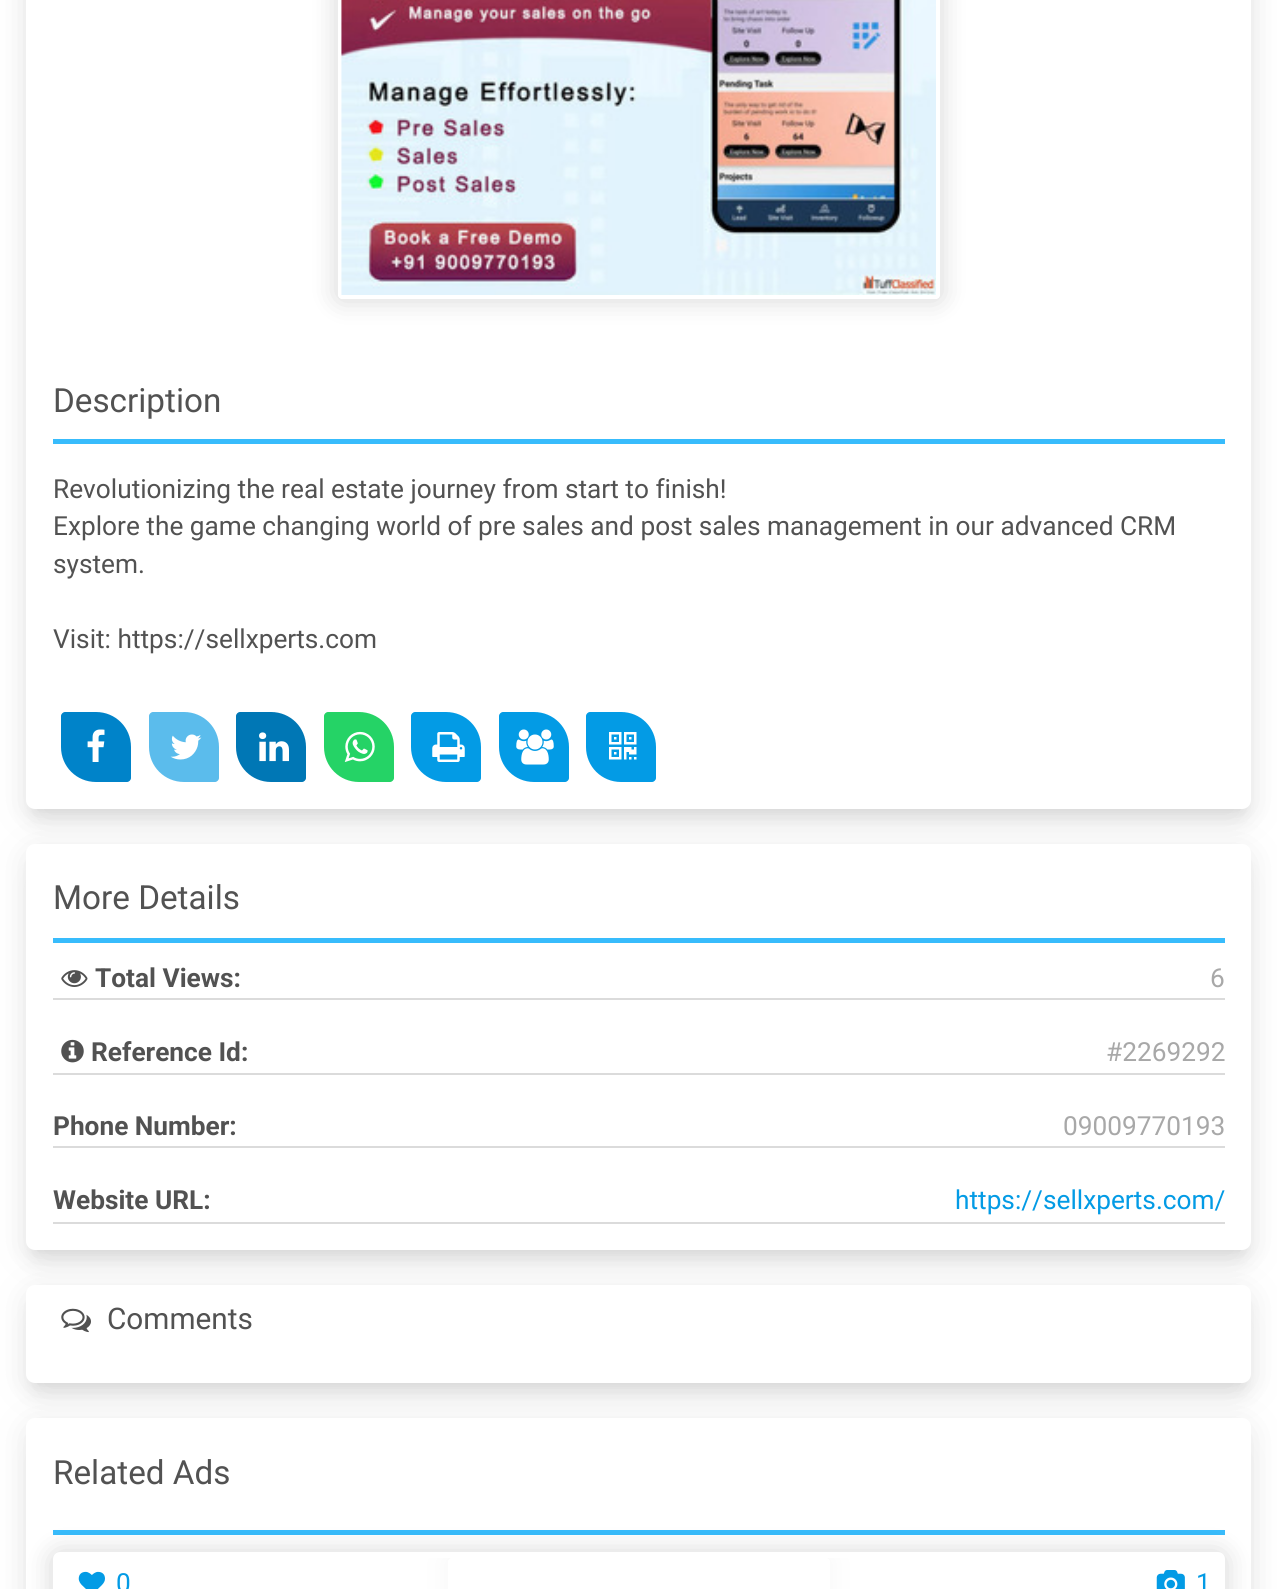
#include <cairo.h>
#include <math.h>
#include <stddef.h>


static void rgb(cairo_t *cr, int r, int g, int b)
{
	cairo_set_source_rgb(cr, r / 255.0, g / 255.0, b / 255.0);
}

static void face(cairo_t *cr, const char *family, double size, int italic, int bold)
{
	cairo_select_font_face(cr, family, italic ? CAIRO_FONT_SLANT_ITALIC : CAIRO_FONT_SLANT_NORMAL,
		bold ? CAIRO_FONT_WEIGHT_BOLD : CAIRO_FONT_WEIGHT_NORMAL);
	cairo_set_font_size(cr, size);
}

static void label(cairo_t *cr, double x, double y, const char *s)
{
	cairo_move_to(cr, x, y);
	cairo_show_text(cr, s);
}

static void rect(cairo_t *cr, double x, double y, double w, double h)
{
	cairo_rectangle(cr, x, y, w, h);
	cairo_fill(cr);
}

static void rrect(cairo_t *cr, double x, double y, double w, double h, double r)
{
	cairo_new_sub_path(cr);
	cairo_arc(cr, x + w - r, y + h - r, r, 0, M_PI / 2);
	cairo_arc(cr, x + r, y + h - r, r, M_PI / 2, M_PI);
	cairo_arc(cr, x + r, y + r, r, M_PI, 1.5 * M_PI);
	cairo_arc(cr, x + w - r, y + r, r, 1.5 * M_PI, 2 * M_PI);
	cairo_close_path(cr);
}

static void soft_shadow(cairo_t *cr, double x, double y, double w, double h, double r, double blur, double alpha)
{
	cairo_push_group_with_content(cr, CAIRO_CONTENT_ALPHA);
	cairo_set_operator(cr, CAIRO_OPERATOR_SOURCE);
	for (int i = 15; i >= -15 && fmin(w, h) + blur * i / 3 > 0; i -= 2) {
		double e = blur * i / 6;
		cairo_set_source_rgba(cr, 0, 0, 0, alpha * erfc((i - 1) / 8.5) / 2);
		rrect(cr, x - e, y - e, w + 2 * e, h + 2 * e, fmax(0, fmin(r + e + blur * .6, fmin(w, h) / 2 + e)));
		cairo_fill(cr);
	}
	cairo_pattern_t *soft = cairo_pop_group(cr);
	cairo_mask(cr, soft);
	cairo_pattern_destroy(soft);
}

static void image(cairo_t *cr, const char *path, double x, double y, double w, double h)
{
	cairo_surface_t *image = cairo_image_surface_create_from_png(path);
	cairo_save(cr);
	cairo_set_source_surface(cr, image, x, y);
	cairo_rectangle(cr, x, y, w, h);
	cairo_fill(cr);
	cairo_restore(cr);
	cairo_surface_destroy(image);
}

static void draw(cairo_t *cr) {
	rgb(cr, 255, 255, 255);
	cairo_paint(cr);
	rgb(cr, 170, 170, 170);
	soft_shadow(cr, 35, -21, 1208, 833, 0, 7, 0.2);
	rgb(cr, 70, 70, 70);
	soft_shadow(cr, 26, -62, 1225, 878, 9, 17.5, 0.12);
	rgb(cr, 160, 160, 160);
	soft_shadow(cr, 44, -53, 1190, 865, 0, 17.5, 0.28);
	rgb(cr, 255, 255, 255);
	rrect(cr, 26, -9, 1225, 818, 9);
	cairo_fill(cr);
	cairo_save(cr);
	cairo_set_fill_rule(cr, CAIRO_FILL_RULE_EVEN_ODD);
	cairo_new_path(cr);
	cairo_move_to(cr, 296, 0);
	cairo_line_to(cr, 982, 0);
	cairo_line_to(cr, 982, 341);
	cairo_line_to(cr, 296, 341);
	cairo_close_path(cr);
	cairo_move_to(cr, 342, -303);
	cairo_line_to(cr, 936, -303);
	cairo_curve_to(cr, 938, -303, 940, -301, 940, -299);
	cairo_line_to(cr, 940, 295);
	cairo_curve_to(cr, 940, 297, 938, 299, 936, 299);
	cairo_line_to(cr, 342, 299);
	cairo_curve_to(cr, 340, 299, 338, 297, 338, 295);
	cairo_line_to(cr, 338, -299);
	cairo_curve_to(cr, 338, -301, 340, -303, 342, -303);
	cairo_close_path(cr);
	cairo_clip(cr);
	rgb(cr, 0, 0, 0);
	soft_shadow(cr, 336, -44, 606, 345, 5, 13, 0.15);
	cairo_restore(cr);
	image(cr, "image0.png", 341, 0, 595, 295);
	face(cr, "Roboto", 33.25, 0, 0);
	rgb(cr, 82, 82, 82);
	label(cr, 53, 412, "Description");
	rgb(cr, 56, 188, 252);
	rect(cr, 53, 439, 1172, 5);
	face(cr, "Roboto", 26.25, 0, 0);
	rgb(cr, 82, 82, 82);
	label(cr, 53, 498, "Revolutionizing the real estate journey from start to finish!");
	label(cr, 53, 535, "Explore the game changing world of pre sales and post sales management in our advanced CRM");
	label(cr, 53, 573, "system.");
	label(cr, 53, 648, "Visit: https://sellxperts.com");
	rgb(cr, 0, 131, 201);
	cairo_new_path(cr);
	cairo_move_to(cr, 65, 712);
	cairo_line_to(cr, 96, 712);
	cairo_curve_to(cr, 115.5, 712, 131, 727.5, 131, 747);
	cairo_line_to(cr, 131, 778);
	cairo_curve_to(cr, 131, 780, 129, 782, 127, 782);
	cairo_line_to(cr, 96, 782);
	cairo_curve_to(cr, 76.5, 782, 61, 766.5, 61, 747);
	cairo_line_to(cr, 61, 716);
	cairo_curve_to(cr, 61, 714, 63, 712, 65, 712);
	cairo_close_path(cr);
	cairo_fill(cr);
	image(cr, "image1.png", 87, 729, 18, 33);
	rgb(cr, 91, 188, 236);
	cairo_new_path(cr);
	cairo_move_to(cr, 153, 712);
	cairo_line_to(cr, 184, 712);
	cairo_curve_to(cr, 203.5, 712, 219, 727.5, 219, 747);
	cairo_line_to(cr, 219, 778);
	cairo_curve_to(cr, 219, 780, 217, 782, 215, 782);
	cairo_line_to(cr, 184, 782);
	cairo_curve_to(cr, 164.5, 782, 149, 766.5, 149, 747);
	cairo_line_to(cr, 149, 716);
	cairo_curve_to(cr, 149, 714, 151, 712, 153, 712);
	cairo_close_path(cr);
	cairo_fill(cr);
	image(cr, "image2.png", 170, 734, 32, 26);
	rgb(cr, 0, 119, 181);
	cairo_new_path(cr);
	cairo_move_to(cr, 240, 712);
	cairo_line_to(cr, 271, 712);
	cairo_curve_to(cr, 290.5, 712, 306, 727.5, 306, 747);
	cairo_line_to(cr, 306, 778);
	cairo_curve_to(cr, 306, 780, 304, 782, 302, 782);
	cairo_line_to(cr, 271, 782);
	cairo_curve_to(cr, 251.5, 782, 236, 766.5, 236, 747);
	cairo_line_to(cr, 236, 716);
	cairo_curve_to(cr, 236, 714, 238, 712, 240, 712);
	cairo_close_path(cr);
	cairo_fill(cr);
	image(cr, "image3.png", 259, 732, 30, 30);
	rgb(cr, 37, 211, 102);
	cairo_new_path(cr);
	cairo_move_to(cr, 328, 712);
	cairo_line_to(cr, 359, 712);
	cairo_curve_to(cr, 378.5, 712, 394, 727.5, 394, 747);
	cairo_line_to(cr, 394, 778);
	cairo_curve_to(cr, 394, 780, 392, 782, 390, 782);
	cairo_line_to(cr, 359, 782);
	cairo_curve_to(cr, 339.5, 782, 324, 766.5, 324, 747);
	cairo_line_to(cr, 324, 716);
	cairo_curve_to(cr, 324, 714, 326, 712, 328, 712);
	cairo_close_path(cr);
	cairo_fill(cr);
	image(cr, "image4.png", 344, 731, 31, 31);
	rgb(cr, 3, 155, 229);
	cairo_new_path(cr);
	cairo_move_to(cr, 415, 712);
	cairo_line_to(cr, 446, 712);
	cairo_curve_to(cr, 465.5, 712, 481, 727.5, 481, 747);
	cairo_line_to(cr, 481, 778);
	cairo_curve_to(cr, 481, 780, 479, 782, 477, 782);
	cairo_line_to(cr, 446, 782);
	cairo_curve_to(cr, 426.5, 782, 411, 766.5, 411, 747);
	cairo_line_to(cr, 411, 716);
	cairo_curve_to(cr, 411, 714, 413, 712, 415, 712);
	cairo_close_path(cr);
	cairo_fill(cr);
	image(cr, "image5.png", 432, 732, 33, 30);
	cairo_new_path(cr);
	cairo_move_to(cr, 503, 712);
	cairo_line_to(cr, 534, 712);
	cairo_curve_to(cr, 553.5, 712, 569, 727.5, 569, 747);
	cairo_line_to(cr, 569, 778);
	cairo_curve_to(cr, 569, 780, 567, 782, 565, 782);
	cairo_line_to(cr, 534, 782);
	cairo_curve_to(cr, 514.5, 782, 499, 766.5, 499, 747);
	cairo_line_to(cr, 499, 716);
	cairo_curve_to(cr, 499, 714, 501, 712, 503, 712);
	cairo_close_path(cr);
	cairo_fill(cr);
	image(cr, "image6.png", 516, 729, 38, 36);
	cairo_new_path(cr);
	cairo_move_to(cr, 590, 712);
	cairo_line_to(cr, 621, 712);
	cairo_curve_to(cr, 640.5, 712, 656, 727.5, 656, 747);
	cairo_line_to(cr, 656, 778);
	cairo_curve_to(cr, 656, 780, 654, 782, 652, 782);
	cairo_line_to(cr, 621, 782);
	cairo_curve_to(cr, 601.5, 782, 586, 766.5, 586, 747);
	cairo_line_to(cr, 586, 716);
	cairo_curve_to(cr, 586, 714, 588, 712, 590, 712);
	cairo_close_path(cr);
	cairo_fill(cr);
	image(cr, "image7.png", 609, 732, 28, 28);
	rgb(cr, 170, 170, 170);
	soft_shadow(cr, 35, 865, 1208, 388, 0, 7, 0.2);
	rgb(cr, 70, 70, 70);
	soft_shadow(cr, 26, 851, 1225, 406, 9, 17.5, 0.12);
	rgb(cr, 160, 160, 160);
	soft_shadow(cr, 44, 882, 1190, 371, 0, 17.5, 0.28);
	rgb(cr, 255, 255, 255);
	rrect(cr, 26, 844, 1225, 406, 9);
	cairo_fill(cr);
	face(cr, "Roboto", 33.25, 0, 0);
	rgb(cr, 82, 82, 82);
	label(cr, 53, 909, "More Details");
	rgb(cr, 56, 188, 252);
	rect(cr, 53, 938, 1172, 5);
	rgb(cr, 219, 219, 219);
	rect(cr, 53, 998, 1172, 2);
	image(cr, "image8.png", 61, 970, 27, 17);
	face(cr, "Roboto", 26.25, 0, 1);
	rgb(cr, 82, 82, 82);
	label(cr, 95, 987, "Total Views:");
	face(cr, "Roboto", 26.25, 0, 0);
	rgb(cr, 168, 168, 168);
	label(cr, 1210, 987, "6");
	rgb(cr, 219, 219, 219);
	rect(cr, 53, 1073, 1172, 2);
	image(cr, "image9.png", 61, 1039, 23, 24);
	face(cr, "Roboto", 26.25, 0, 1);
	rgb(cr, 82, 82, 82);
	label(cr, 91, 1061, "Reference Id:");
	face(cr, "Roboto", 26.25, 0, 0);
	rgb(cr, 168, 168, 168);
	label(cr, 1106, 1061, "#2269292");
	rgb(cr, 219, 219, 219);
	rect(cr, 53, 1146, 1172, 2);
	face(cr, "Roboto", 26.25, 0, 1);
	rgb(cr, 82, 82, 82);
	label(cr, 53, 1135, "Phone Number:");
	face(cr, "Roboto", 26.25, 0, 0);
	rgb(cr, 168, 168, 168);
	label(cr, 1063, 1135, "09009770193");
	rgb(cr, 219, 219, 219);
	rect(cr, 53, 1222, 1172, 2);
	face(cr, "Roboto", 26.25, 0, 1);
	rgb(cr, 82, 82, 82);
	label(cr, 53, 1209, "Website URL:");
	face(cr, "Roboto", 26.25, 0, 0);
	rgb(cr, 3, 155, 229);
	label(cr, 955, 1209, "https://sellxperts.com/");
	rgb(cr, 170, 170, 170);
	soft_shadow(cr, 35, 1306, 1208, 80, 0, 7, 0.2);
	rgb(cr, 70, 70, 70);
	soft_shadow(cr, 26, 1292, 1225, 98, 9, 17.5, 0.12);
	rgb(cr, 160, 160, 160);
	soft_shadow(cr, 44, 1323, 1190, 63, 0, 17.5, 0.28);
	rgb(cr, 255, 255, 255);
	rrect(cr, 26, 1285, 1225, 98, 9);
	cairo_fill(cr);
	image(cr, "image10.png", 61, 1308, 30, 25);
	face(cr, "Roboto", 29.75, 0, 0);
	rgb(cr, 82, 82, 82);
	label(cr, 107, 1329, "Comments");
	rgb(cr, 70, 70, 70);
	soft_shadow(cr, 26, 1425, 1225, 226, 9, 17.5, 0.12);
	rgb(cr, 160, 160, 160);
	soft_shadow(cr, 44, 1456, 1190, 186, 0, 17.5, 0.28);
	rgb(cr, 255, 255, 255);
	rrect(cr, 26, 1418, 1225, 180, 9);
	cairo_fill(cr);
	face(cr, "Roboto", 33.25, 0, 0);
	rgb(cr, 82, 82, 82);
	label(cr, 53, 1484, "Related Ads");
	rgb(cr, 56, 188, 252);
	rect(cr, 53, 1530, 1172, 5);
	rgb(cr, 0, 0, 0);
	soft_shadow(cr, 51, 1551, 1176, 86, 9, 13, 0.15);
	rgb(cr, 255, 255, 255);
	rrect(cr, 53, 1552, 1172, 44, 7);
	cairo_fill(cr);
	cairo_save(cr);
	cairo_rectangle(cr, 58, 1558, 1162, 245);
	cairo_clip(cr);
	cairo_set_fill_rule(cr, CAIRO_FILL_RULE_EVEN_ODD);
	cairo_new_path(cr);
	cairo_move_to(cr, 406, 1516);
	cairo_line_to(cr, 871, 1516);
	cairo_line_to(cr, 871, 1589);
	cairo_line_to(cr, 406, 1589);
	cairo_close_path(cr);
	cairo_move_to(cr, 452, 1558);
	cairo_line_to(cr, 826, 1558);
	cairo_curve_to(cr, 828, 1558, 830, 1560, 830, 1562);
	cairo_line_to(cr, 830, 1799);
	cairo_curve_to(cr, 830, 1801, 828, 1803, 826, 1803);
	cairo_line_to(cr, 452, 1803);
	cairo_curve_to(cr, 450, 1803, 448, 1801, 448, 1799);
	cairo_line_to(cr, 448, 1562);
	cairo_curve_to(cr, 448, 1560, 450, 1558, 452, 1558);
	cairo_close_path(cr);
	cairo_clip(cr);
	rgb(cr, 0, 0, 0);
	soft_shadow(cr, 446, 1556, 385, 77, 5, 13, 0.15);
	cairo_restore(cr);
	cairo_set_source_rgba(cr, 1, 1, 1, 0.78);
	cairo_new_path(cr);
	cairo_move_to(cr, 60, 1558);
	cairo_line_to(cr, 1220, 1558);
	cairo_line_to(cr, 1220, 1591);
	cairo_line_to(cr, 58, 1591);
	cairo_line_to(cr, 58, 1560);
	cairo_curve_to(cr, 58, 1559, 59, 1558, 60, 1558);
	cairo_close_path(cr);
	cairo_fill(cr);
	image(cr, "image11.png", 78, 1571, 27, 18);
	face(cr, "Roboto", 26.25, 0, 0);
	rgb(cr, 3, 155, 229);
	label(cr, 116, 1592, "0");
	image(cr, "image12.png", 1156, 1570, 29, 19);
	label(cr, 1196, 1592, "1");
}

int main(void) {
	cairo_surface_t *surface = cairo_image_surface_create(CAIRO_FORMAT_RGB24, 1277, 1589);
	cairo_t *cr = cairo_create(surface);
	cairo_font_options_t *options = cairo_font_options_create();
	cairo_font_options_set_hint_metrics(options, CAIRO_HINT_METRICS_OFF);
	cairo_font_options_set_hint_style(options, CAIRO_HINT_STYLE_NONE);
	cairo_set_font_options(cr, options);
	cairo_set_miter_limit(cr, 4);
	draw(cr);
	cairo_surface_write_to_png(surface, "render.png");
	cairo_font_options_destroy(options);
	cairo_destroy(cr);
	cairo_surface_destroy(surface);
	return 0;
}
